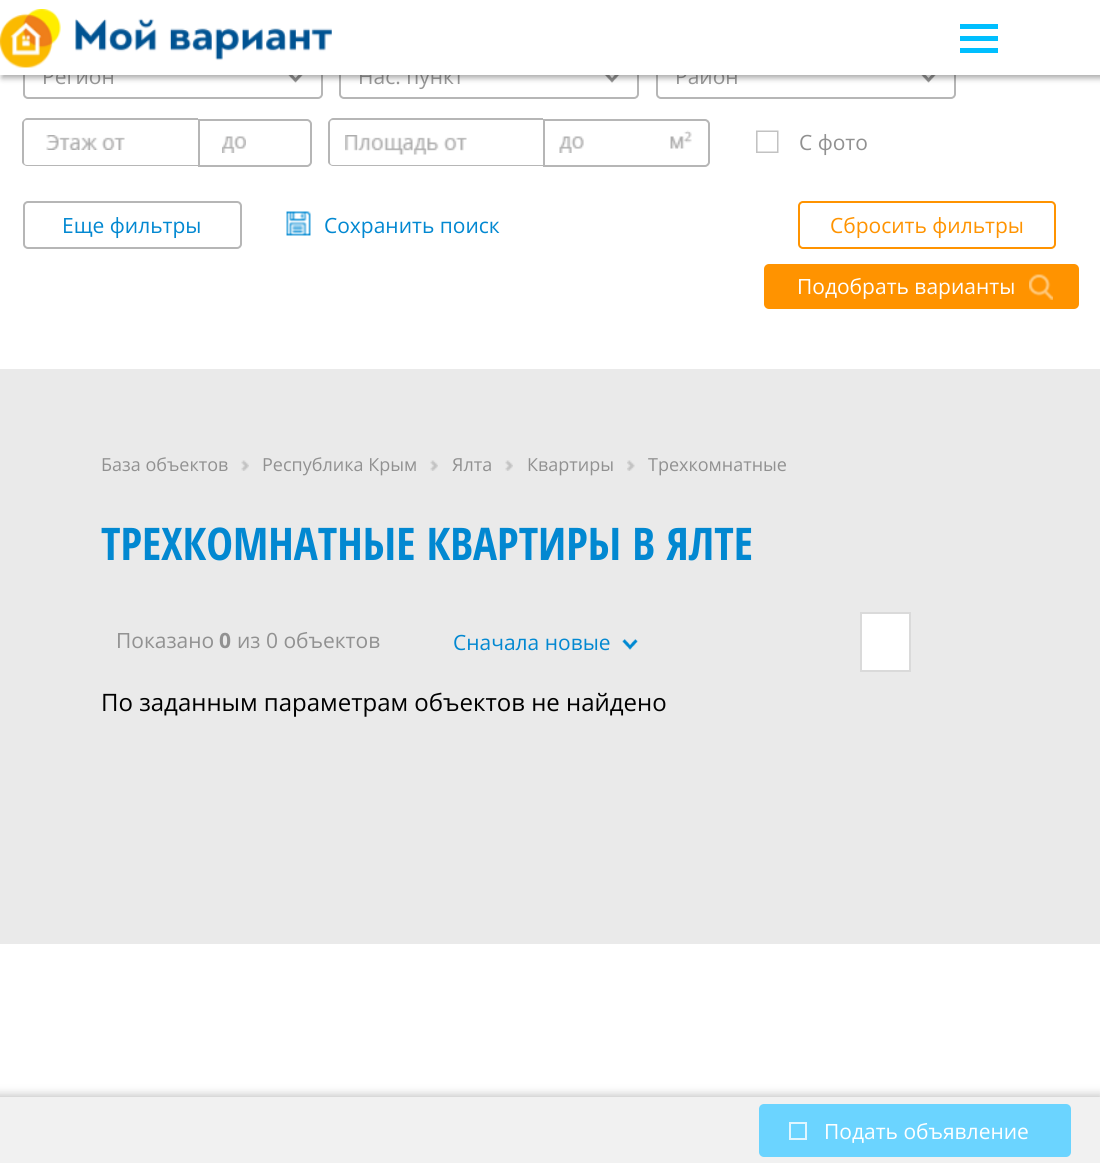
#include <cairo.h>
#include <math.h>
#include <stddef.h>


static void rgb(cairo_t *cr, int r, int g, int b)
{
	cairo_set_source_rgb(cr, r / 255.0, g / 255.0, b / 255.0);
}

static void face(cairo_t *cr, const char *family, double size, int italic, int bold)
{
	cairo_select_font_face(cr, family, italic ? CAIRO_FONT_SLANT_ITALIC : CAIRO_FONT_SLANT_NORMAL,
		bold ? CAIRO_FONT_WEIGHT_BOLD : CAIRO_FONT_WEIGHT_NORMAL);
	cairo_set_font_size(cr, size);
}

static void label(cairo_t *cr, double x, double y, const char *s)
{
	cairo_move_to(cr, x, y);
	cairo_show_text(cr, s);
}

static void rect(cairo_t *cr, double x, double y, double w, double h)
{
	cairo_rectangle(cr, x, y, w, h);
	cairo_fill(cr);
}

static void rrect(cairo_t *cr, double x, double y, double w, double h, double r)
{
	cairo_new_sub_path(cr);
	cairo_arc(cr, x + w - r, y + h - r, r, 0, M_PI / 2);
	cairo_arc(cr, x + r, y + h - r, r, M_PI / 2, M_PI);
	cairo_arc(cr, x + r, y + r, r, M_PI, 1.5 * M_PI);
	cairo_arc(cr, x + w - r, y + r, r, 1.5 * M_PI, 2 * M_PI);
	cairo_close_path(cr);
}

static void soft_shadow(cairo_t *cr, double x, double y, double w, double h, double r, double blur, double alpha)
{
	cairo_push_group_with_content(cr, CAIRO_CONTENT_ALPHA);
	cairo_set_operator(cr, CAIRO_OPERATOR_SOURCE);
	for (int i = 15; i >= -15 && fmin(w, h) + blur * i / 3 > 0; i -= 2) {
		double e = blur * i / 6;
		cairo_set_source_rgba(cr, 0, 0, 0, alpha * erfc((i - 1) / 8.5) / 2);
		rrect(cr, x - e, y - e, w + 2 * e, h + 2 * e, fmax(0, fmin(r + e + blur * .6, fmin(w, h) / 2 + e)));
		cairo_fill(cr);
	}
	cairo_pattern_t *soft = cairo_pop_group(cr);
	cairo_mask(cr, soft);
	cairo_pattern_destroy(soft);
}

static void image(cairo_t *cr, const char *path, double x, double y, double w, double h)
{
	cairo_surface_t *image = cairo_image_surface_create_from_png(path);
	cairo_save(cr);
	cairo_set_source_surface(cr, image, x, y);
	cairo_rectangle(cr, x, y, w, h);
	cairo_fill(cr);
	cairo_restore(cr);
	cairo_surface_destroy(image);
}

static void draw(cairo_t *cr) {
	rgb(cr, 255, 255, 255);
	cairo_paint(cr);
	rrect(cr, 24, 52, 298, 46, 4);
	rgb(cr, 182, 182, 182);
	cairo_stroke(cr);
	face(cr, "Open Sans", 21, 0, 0);
	rgb(cr, 153, 153, 153);
	label(cr, 42, 84, "Регион");
	image(cr, "image0.png", 288, 75, 15, 8);
	rrect(cr, 340, 52, 298, 46, 4);
	rgb(cr, 182, 182, 182);
	cairo_stroke(cr);
	rgb(cr, 153, 153, 153);
	label(cr, 358, 84, "Нас. пункт");
	image(cr, "image1.png", 604, 75, 16, 8);
	rrect(cr, 657, 52, 298, 46, 4);
	rgb(cr, 182, 182, 182);
	cairo_stroke(cr);
	rgb(cr, 153, 153, 153);
	label(cr, 675, 84, "Район");
	image(cr, "image2.png", 921, 75, 15, 8);
	image(cr, "image3.png", 46, 135, 79, 15);
	rgb(cr, 182, 182, 182);
	cairo_set_fill_rule(cr, CAIRO_FILL_RULE_EVEN_ODD);
	cairo_new_path(cr);
	cairo_move_to(cr, 27, 118);
	cairo_line_to(cr, 198, 118);
	cairo_line_to(cr, 198, 166);
	cairo_line_to(cr, 27, 166);
	cairo_curve_to(cr, 25, 166, 22, 164, 22, 162);
	cairo_line_to(cr, 22, 123);
	cairo_curve_to(cr, 22, 121, 25, 118, 27, 118);
	cairo_close_path(cr);
	cairo_move_to(cr, 27, 120);
	cairo_line_to(cr, 198, 120);
	cairo_line_to(cr, 198, 165);
	cairo_line_to(cr, 27, 165);
	cairo_curve_to(cr, 25, 165, 24, 164, 24, 162);
	cairo_line_to(cr, 24, 123);
	cairo_curve_to(cr, 24, 121, 25, 120, 27, 120);
	cairo_close_path(cr);
	cairo_fill(cr);
	image(cr, "image4.png", 222, 136, 24, 17);
	cairo_new_path(cr);
	cairo_move_to(cr, 199, 120);
	cairo_line_to(cr, 307, 120);
	cairo_curve_to(cr, 309, 120, 311, 122, 311, 124);
	cairo_line_to(cr, 311, 162);
	cairo_curve_to(cr, 311, 164, 309, 166, 307, 166);
	cairo_line_to(cr, 199, 166);
	cairo_close_path(cr);
	cairo_stroke(cr);
	image(cr, "image5.png", 345, 135, 122, 20);
	cairo_new_path(cr);
	cairo_move_to(cr, 333, 118);
	cairo_line_to(cr, 543, 118);
	cairo_line_to(cr, 543, 166);
	cairo_line_to(cr, 333, 166);
	cairo_curve_to(cr, 331, 166, 328, 164, 328, 162);
	cairo_line_to(cr, 328, 123);
	cairo_curve_to(cr, 328, 121, 331, 118, 333, 118);
	cairo_close_path(cr);
	cairo_move_to(cr, 333, 120);
	cairo_line_to(cr, 543, 120);
	cairo_line_to(cr, 543, 165);
	cairo_line_to(cr, 333, 165);
	cairo_curve_to(cr, 331, 165, 330, 164, 330, 162);
	cairo_line_to(cr, 330, 123);
	cairo_curve_to(cr, 330, 121, 331, 120, 333, 120);
	cairo_close_path(cr);
	cairo_fill(cr);
	image(cr, "image6.png", 559, 130, 133, 23);
	cairo_new_path(cr);
	cairo_move_to(cr, 544, 120);
	cairo_line_to(cr, 705, 120);
	cairo_curve_to(cr, 707, 120, 709, 122, 709, 124);
	cairo_line_to(cr, 709, 162);
	cairo_curve_to(cr, 709, 164, 707, 166, 705, 166);
	cairo_line_to(cr, 544, 166);
	cairo_close_path(cr);
	cairo_stroke(cr);
	image(cr, "image7.png", 756, 130, 23, 23);
	rgb(cr, 145, 145, 145);
	label(cr, 799, 150, "С фото");
	rrect(cr, 24, 202, 217, 46, 4);
	rgb(cr, 182, 182, 182);
	cairo_stroke(cr);
	rgb(cr, 2, 136, 209);
	label(cr, 62, 233, "Еще фильтры");
	image(cr, "image8.png", 286, 211, 25, 25);
	label(cr, 324, 233, "Сохранить поиск");
	rrect(cr, 799, 202, 256, 46, 4);
	rgb(cr, 255, 147, 0);
	cairo_stroke(cr);
	label(cr, 830, 233, "Сбросить фильтры");
	rrect(cr, 764, 264, 315, 45, 5);
	cairo_fill(cr);
	image(cr, "image9.png", 1029, 274, 24, 26);
	rgb(cr, 255, 255, 255);
	label(cr, 797, 294, "Подобрать варианты");
	rgb(cr, 234, 234, 234);
	rect(cr, 0, 369, 1100, 575);
	image(cr, "image10.png", 241, 460, 8, 11);
	face(cr, "Open Sans", 18, 0, 0);
	rgb(cr, 145, 145, 145);
	label(cr, 101, 471, "База объектов");
	image(cr, "image11.png", 430, 460, 8, 11);
	label(cr, 262, 471, "Республика Крым");
	image(cr, "image10.png", 505, 460, 8, 11);
	label(cr, 452, 471, "Ялта");
	image(cr, "image12.png", 627, 460, 8, 11);
	label(cr, 527, 471, "Квартиры");
	label(cr, 648, 471, "Трехкомнатные");
	face(cr, "Open Sans Condensed", 45, 0, 1);
	rgb(cr, 2, 136, 209);
	label(cr, 101, 560, "ТРЕХКОМНАТНЫЕ КВАРТИРЫ В ЯЛТЕ");
	face(cr, "Open Sans", 21, 0, 0);
	rgb(cr, 145, 145, 145);
	label(cr, 116, 648, "Показано");
	face(cr, "Open Sans", 21, 0, 1);
	label(cr, 219, 648, "0");
	face(cr, "Open Sans", 21, 0, 0);
	label(cr, 237, 648, "из 0 объектов");
	rgb(cr, 2, 136, 209);
	label(cr, 453, 650, "Сначала новые");
	image(cr, "image13.png", 622, 639, 16, 11);
	rgb(cr, 255, 255, 255);
	cairo_rectangle(cr, 861, 613, 49, 58);
	cairo_fill_preserve(cr);
	rgb(cr, 218, 218, 218);
	cairo_stroke(cr);
	face(cr, "Open Sans", 24, 0, 0);
	rgb(cr, 0, 0, 0);
	label(cr, 101, 711, "По заданным параметрам объектов не найдено");
	rgb(cr, 0, 0, 0);
	soft_shadow(cr, 2, 3, 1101, 75, 0, 3, 0.34);
	rgb(cr, 255, 255, 255);
	rect(cr, 0, 0, 1100, 75);
	image(cr, "image14.png", 0, 9, 332, 59);
	rgb(cr, 0, 191, 255);
	rect(cr, 960, 24, 38, 5);
	rect(cr, 960, 36, 38, 5);
	rect(cr, 960, 48, 38, 5);
	rgb(cr, 0, 0, 0);
	soft_shadow(cr, -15, 1095, 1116, 68, 0, 5, 0.24);
	rgb(cr, 241, 241, 241);
	rect(cr, 0, 1097, 1100, 66);
	rgb(cr, 107, 212, 255);
	rrect(cr, 759, 1104, 312, 53, 5);
	cairo_fill(cr);
	cairo_rectangle(cr, 790, 1123, 16, 16);
	rgb(cr, 225, 246, 255);
	cairo_stroke(cr);
	face(cr, "Open Sans", 21, 0, 0);
	rgb(cr, 255, 255, 255);
	label(cr, 824, 1139, "Подать объявление");
}

int main(void) {
	cairo_surface_t *surface = cairo_image_surface_create(CAIRO_FORMAT_RGB24, 1100, 1163);
	cairo_t *cr = cairo_create(surface);
	cairo_font_options_t *options = cairo_font_options_create();
	cairo_font_options_set_hint_metrics(options, CAIRO_HINT_METRICS_OFF);
	cairo_font_options_set_hint_style(options, CAIRO_HINT_STYLE_NONE);
	cairo_set_font_options(cr, options);
	cairo_set_miter_limit(cr, 4);
	draw(cr);
	cairo_surface_write_to_png(surface, "render.png");
	cairo_font_options_destroy(options);
	cairo_destroy(cr);
	cairo_surface_destroy(surface);
	return 0;
}
